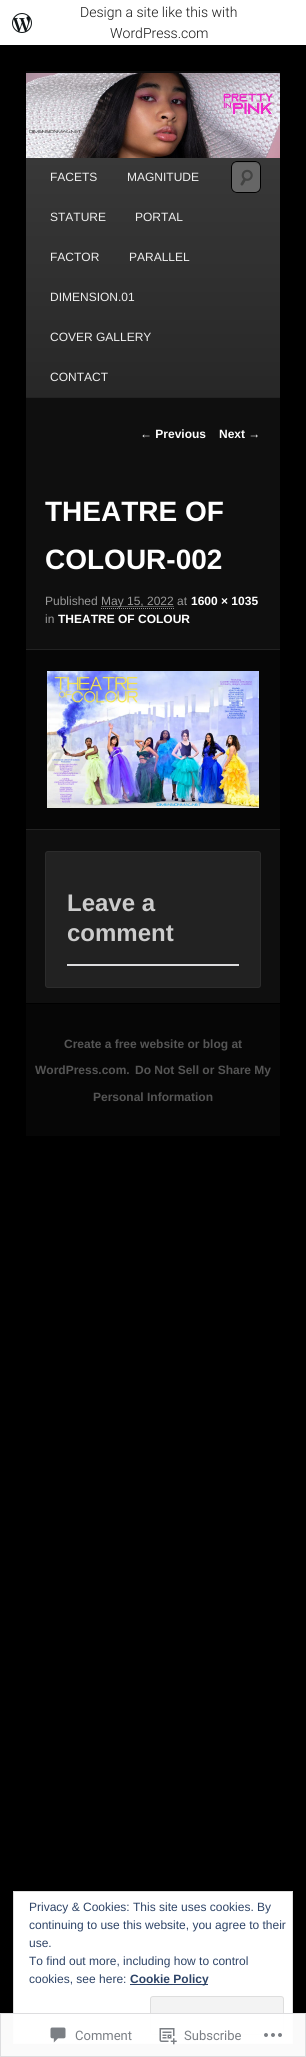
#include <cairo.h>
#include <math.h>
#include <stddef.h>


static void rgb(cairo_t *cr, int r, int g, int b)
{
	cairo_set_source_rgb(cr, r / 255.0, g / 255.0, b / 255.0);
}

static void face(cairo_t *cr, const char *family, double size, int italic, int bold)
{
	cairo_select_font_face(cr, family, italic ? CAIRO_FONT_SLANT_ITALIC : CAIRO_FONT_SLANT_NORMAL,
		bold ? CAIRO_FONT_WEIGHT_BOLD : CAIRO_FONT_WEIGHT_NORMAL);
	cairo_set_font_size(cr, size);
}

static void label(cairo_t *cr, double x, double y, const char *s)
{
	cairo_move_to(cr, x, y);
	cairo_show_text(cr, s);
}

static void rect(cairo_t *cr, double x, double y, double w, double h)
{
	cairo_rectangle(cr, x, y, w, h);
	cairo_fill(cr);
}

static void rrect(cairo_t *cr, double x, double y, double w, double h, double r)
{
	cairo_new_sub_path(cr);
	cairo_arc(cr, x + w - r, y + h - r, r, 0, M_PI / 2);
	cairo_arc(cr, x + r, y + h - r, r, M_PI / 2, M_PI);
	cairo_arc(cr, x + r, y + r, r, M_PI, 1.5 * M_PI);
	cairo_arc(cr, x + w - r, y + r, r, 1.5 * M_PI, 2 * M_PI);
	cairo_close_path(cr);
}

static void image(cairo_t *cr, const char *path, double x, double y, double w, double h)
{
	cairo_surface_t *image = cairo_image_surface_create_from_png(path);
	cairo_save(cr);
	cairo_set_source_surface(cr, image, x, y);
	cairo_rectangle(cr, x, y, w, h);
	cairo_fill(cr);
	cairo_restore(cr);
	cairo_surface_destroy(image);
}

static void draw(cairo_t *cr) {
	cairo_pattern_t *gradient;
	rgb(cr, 0, 0, 0);
	cairo_paint(cr);
	rgb(cr, 255, 255, 255);
	rect(cr, 0, 0, 306, 45);
	image(cr, "image0.png", 12, 13, 20, 20);
	face(cr, "Roboto Light", 14, 0, 0);
	rgb(cr, 23, 23, 23);
	label(cr, 80, 17, "Design a site like this with");
	label(cr, 110, 38, "WordPress.com");
	rgb(cr, 15, 15, 15);
	rect(cr, 26, 398, 254, 605);
	rgb(cr, 10, 10, 10);
	rect(cr, 26, 71, 254, 2);
	image(cr, "image1.png", 26, 73, 254, 85);
	gradient = cairo_pattern_create_linear(153, 157, 153, 397);
	cairo_pattern_add_color_stop_rgba(gradient, 0, 0.22, 0.22, 0.22, 1);
	cairo_pattern_add_color_stop_rgba(gradient, 1, 0.153, 0.153, 0.153, 1);
	cairo_set_source(cr, gradient);
	cairo_pattern_destroy(gradient);
	rect(cr, 26, 158, 254, 239);
	rgb(cr, 34, 34, 34);
	rect(cr, 26, 397, 254, 1);
	face(cr, "Liberation Sans", 12, 0, 0);
	rgb(cr, 238, 238, 238);
	label(cr, 50, 181, "FACETS");
	label(cr, 127, 181, "MAGNITUDE");
	label(cr, 50, 221, "STATURE");
	label(cr, 135, 221, "PORTAL");
	label(cr, 50, 261, "FACTOR");
	label(cr, 129, 261, "PARALLEL");
	label(cr, 50, 301, "DIMENSION.01");
	label(cr, 50, 341, "COVER GALLERY");
	label(cr, 50, 381, "CONTACT");
	rgb(cr, 102, 102, 102);
	rrect(cr, 231, 161, 30, 32, 6);
	cairo_fill(cr);
	image(cr, "image2.png", 240, 169, 13, 17);
	rgb(cr, 92, 92, 92);
	cairo_new_path(cr);
	cairo_move_to(cr, 237, 163);
	cairo_line_to(cr, 252, 163);
	cairo_curve_to(cr, 257, 163, 259, 164.5, 260, 166.5);
	cairo_curve_to(cr, 260, 164, 257.5, 162, 255, 162);
	cairo_line_to(cr, 237, 162);
	cairo_curve_to(cr, 234, 162, 232, 164, 232, 167);
	cairo_line_to(cr, 232, 168);
	cairo_curve_to(cr, 232.5, 165.5, 234, 163, 237, 163);
	cairo_close_path(cr);
	cairo_fill(cr);
	rrect(cr, 231.5, 161.5, 29, 31, 5.5);
	rgb(cr, 0, 0, 0);
	cairo_set_line_width(cr, 1);
	cairo_stroke(cr);
	face(cr, "Liberation Sans", 12, 0, 1);
	rgb(cr, 255, 255, 255);
	label(cr, 140, 438, "← Previous");
	label(cr, 219, 438, "Next →");
	face(cr, "Liberation Sans", 28, 0, 1);
	label(cr, 45, 521, "THEATRE OF");
	label(cr, 45, 569, "COLOUR-002");
	face(cr, "Liberation Sans", 12, 0, 0);
	rgb(cr, 153, 153, 153);
	label(cr, 45, 605, "Published");
	cairo_new_path(cr);
	cairo_move_to(cr, 101.5, 606.5);
	cairo_line_to(cr, 174, 606.5);
	cairo_set_dash(cr, (double[]){1, 1}, 2, 0);
	cairo_stroke(cr);
	label(cr, 101, 605, "May 15, 2022 at");
	cairo_new_path(cr);
	cairo_move_to(cr, 101, 608.5);
	cairo_line_to(cr, 174, 608.5);
	cairo_stroke(cr);
	face(cr, "Liberation Sans", 12, 0, 1);
	rgb(cr, 255, 255, 255);
	label(cr, 191, 605, "1600 × 1035");
	face(cr, "Liberation Sans", 12, 0, 0);
	rgb(cr, 153, 153, 153);
	label(cr, 45, 623, "in");
	face(cr, "Liberation Sans", 12, 0, 1);
	rgb(cr, 255, 255, 255);
	label(cr, 58, 623, "THEATRE OF COLOUR");
	rgb(cr, 6, 6, 6);
	rect(cr, 26, 650, 254, 179);
	rgb(cr, 34, 34, 34);
	rect(cr, 26, 649, 254, 1);
	rect(cr, 26, 829, 254, 1);
	image(cr, "image3.png", 47, 671, 212, 137);
	rrect(cr, 45.5, 851.5, 215, 136, 2.5);
	cairo_fill_preserve(cr);
	rgb(cr, 44, 44, 44);
	cairo_set_dash(cr, NULL, 0, 0);
	cairo_stroke(cr);
	face(cr, "Liberation Sans", 24, 0, 1);
	rgb(cr, 204, 204, 204);
	label(cr, 67, 911, "Leave a");
	label(cr, 67, 941, "comment");
	rgb(cr, 220, 220, 222);
	rect(cr, 67, 964, 172, 2);
	rgb(cr, 6, 6, 6);
	rect(cr, 26, 1004, 254, 132);
	face(cr, "Liberation Sans", 12, 0, 1);
	rgb(cr, 85, 85, 85);
	label(cr, 64, 1048, "Create a free website or blog at");
	label(cr, 35, 1074, "WordPress.com.");
	label(cr, 135, 1074, "Do Not Sell or Share My");
	label(cr, 93, 1101, "Personal Information");
	rgb(cr, 255, 255, 255);
	cairo_rectangle(cr, 13.5, 1891.5, 279, 152);
	cairo_fill_preserve(cr);
	rgb(cr, 222, 222, 222);
	cairo_stroke(cr);
	face(cr, "Liberation Sans", 12, 0, 0);
	rgb(cr, 46, 68, 103);
	label(cr, 29, 1911, "Privacy & Cookies: This site uses cookies. By");
	label(cr, 29, 1929, "continuing to use this website, you agree to their");
	label(cr, 29, 1947, "use.");
	label(cr, 29, 1965, "To find out more, including how to control");
	label(cr, 29, 1983, "cookies, see here:");
	rect(cr, 130, 1984, 78, 1);
	face(cr, "Liberation Sans", 12, 0, 1);
	label(cr, 130, 1983, "Cookie Policy");
	rgb(cr, 243, 243, 243);
	rrect(cr, 150.5, 1996.5, 133, 38, 2.5);
	cairo_fill_preserve(cr);
	rgb(cr, 222, 222, 222);
	cairo_stroke(cr);
	cairo_set_source_rgba(cr, 1, 1, 1, 0.98);
	rect(cr, 0, 2013, 306, 44);
	cairo_rectangle(cr, 0.5, 2013.5, 305, 43);
	cairo_set_source_rgba(cr, 0.863, 0.863, 0.871, 0.98);
	cairo_stroke(cr);
	image(cr, "image4.png", 50, 2027, 16, 16);
	face(cr, "Roboto", 13, 0, 0);
	rgb(cr, 123, 127, 133);
	label(cr, 75, 2040, "Comment");
	image(cr, "image5.png", 159, 2028, 18, 17);
	label(cr, 184, 2040, "Subscribe");
	image(cr, "image6.png", 264, 2033, 18, 4);
}

int main(void) {
	cairo_surface_t *surface = cairo_image_surface_create(CAIRO_FORMAT_RGB24, 306, 2057);
	cairo_t *cr = cairo_create(surface);
	cairo_font_options_t *options = cairo_font_options_create();
	cairo_font_options_set_hint_metrics(options, CAIRO_HINT_METRICS_OFF);
	cairo_font_options_set_hint_style(options, CAIRO_HINT_STYLE_NONE);
	cairo_set_font_options(cr, options);
	cairo_set_miter_limit(cr, 4);
	draw(cr);
	cairo_surface_write_to_png(surface, "render.png");
	cairo_font_options_destroy(options);
	cairo_destroy(cr);
	cairo_surface_destroy(surface);
	return 0;
}
